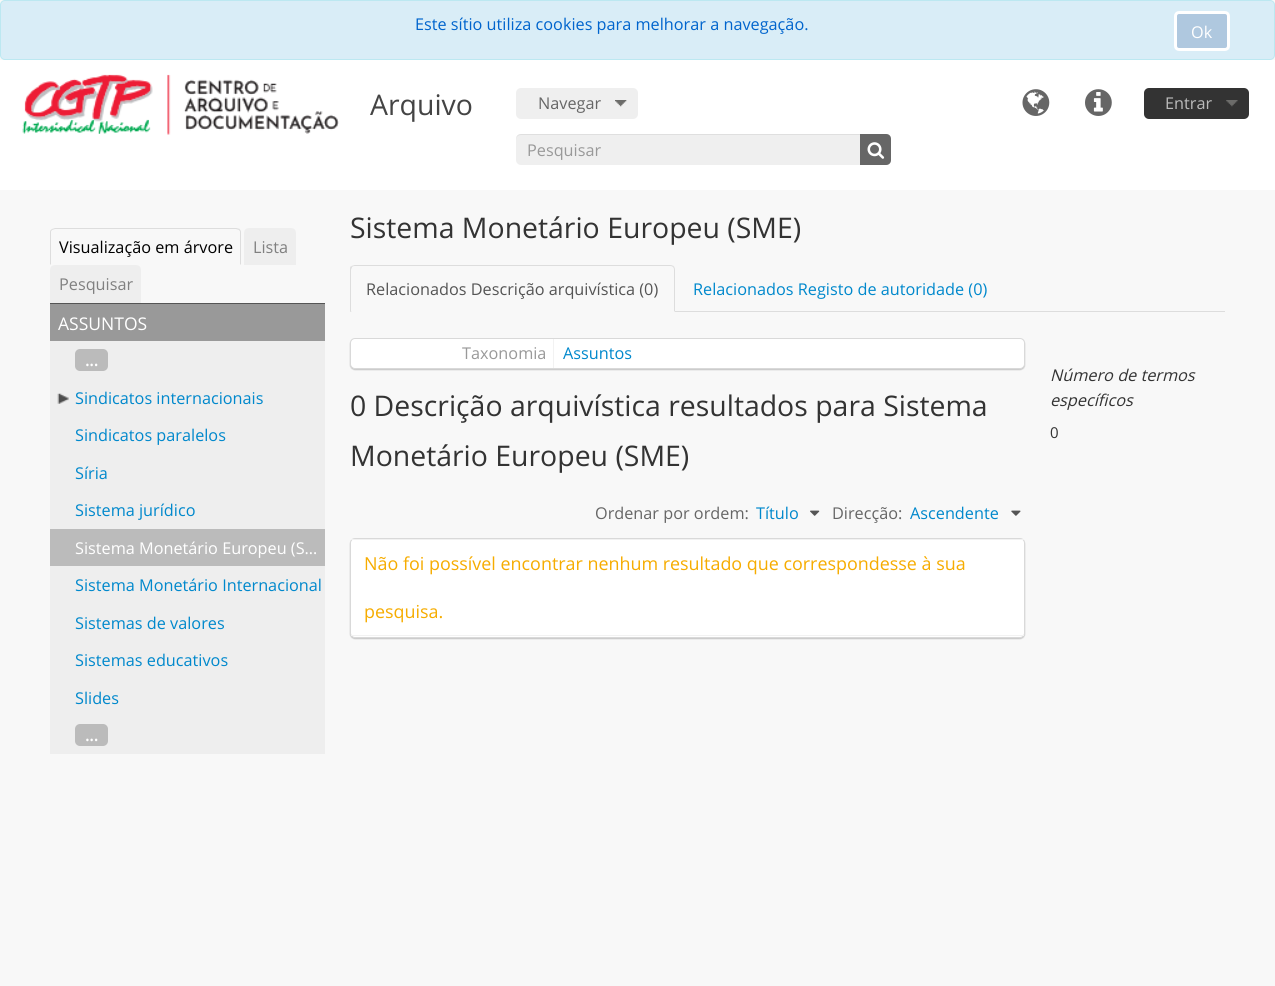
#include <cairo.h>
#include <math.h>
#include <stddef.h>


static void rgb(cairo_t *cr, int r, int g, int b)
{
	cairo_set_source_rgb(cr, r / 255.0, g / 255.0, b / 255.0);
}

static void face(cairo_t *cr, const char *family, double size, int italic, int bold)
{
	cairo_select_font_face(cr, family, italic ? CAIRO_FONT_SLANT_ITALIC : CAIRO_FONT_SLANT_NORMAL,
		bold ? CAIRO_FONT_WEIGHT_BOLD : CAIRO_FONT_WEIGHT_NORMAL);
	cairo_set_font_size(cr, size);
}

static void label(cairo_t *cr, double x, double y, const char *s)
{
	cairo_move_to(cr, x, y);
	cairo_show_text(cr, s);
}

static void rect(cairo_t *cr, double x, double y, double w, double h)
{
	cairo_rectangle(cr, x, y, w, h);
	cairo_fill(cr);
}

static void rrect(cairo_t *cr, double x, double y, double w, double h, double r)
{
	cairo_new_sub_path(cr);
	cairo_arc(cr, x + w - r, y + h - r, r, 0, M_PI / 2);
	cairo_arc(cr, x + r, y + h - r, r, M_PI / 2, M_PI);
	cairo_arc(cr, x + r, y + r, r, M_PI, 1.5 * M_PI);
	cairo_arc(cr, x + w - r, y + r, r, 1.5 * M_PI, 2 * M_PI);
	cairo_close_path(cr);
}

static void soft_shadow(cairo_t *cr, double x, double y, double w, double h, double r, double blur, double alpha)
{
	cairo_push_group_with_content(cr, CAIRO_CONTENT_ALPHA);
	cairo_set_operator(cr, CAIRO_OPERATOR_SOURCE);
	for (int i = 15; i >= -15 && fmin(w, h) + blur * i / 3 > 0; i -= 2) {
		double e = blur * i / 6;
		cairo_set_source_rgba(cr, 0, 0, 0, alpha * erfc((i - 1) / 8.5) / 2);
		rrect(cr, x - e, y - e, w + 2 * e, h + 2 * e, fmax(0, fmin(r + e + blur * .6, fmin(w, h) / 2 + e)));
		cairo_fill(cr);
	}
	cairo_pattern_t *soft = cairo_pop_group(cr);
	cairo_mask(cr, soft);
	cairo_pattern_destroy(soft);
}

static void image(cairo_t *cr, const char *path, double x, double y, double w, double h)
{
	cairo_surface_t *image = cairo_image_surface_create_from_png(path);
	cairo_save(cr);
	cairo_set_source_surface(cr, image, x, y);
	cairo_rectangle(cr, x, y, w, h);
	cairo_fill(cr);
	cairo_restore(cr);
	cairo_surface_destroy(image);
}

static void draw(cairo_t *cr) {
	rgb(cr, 248, 248, 248);
	cairo_paint(cr);
	rgb(cr, 217, 237, 247);
	rrect(cr, 0.5, 0.5, 1274, 59, 4.5);
	cairo_fill_preserve(cr);
	rgb(cr, 188, 232, 241);
	cairo_set_line_width(cr, 1);
	cairo_stroke(cr);
	face(cr, "Open Sans", 16.25, 0, 0);
	rgb(cr, 0, 100, 205);
	label(cr, 415, 30, "Este sítio utiliza cookies para melhorar a navegação.");
	rgb(cr, 175, 200, 223);
	rrect(cr, 1175.5, 12.5, 53, 37, 3.5);
	cairo_fill_preserve(cr);
	rgb(cr, 255, 255, 255);
	cairo_set_line_width(cr, 3);
	cairo_stroke(cr);
	label(cr, 1191, 38, "Ok");
	rect(cr, 0, 60, 1275, 130);
	image(cr, "image0.png", 22, 74, 317, 61);
	face(cr, "Open Sans", 28.4, 0, 0);
	rgb(cr, 68, 68, 68);
	label(cr, 370, 115, "Arquivo");
	rgb(cr, 239, 239, 239);
	rrect(cr, 516, 88, 122, 31, 5);
	cairo_fill(cr);
	image(cr, "image1.png", 615, 100, 12, 7);
	face(cr, "Open Sans", 16.25, 0, 0);
	rgb(cr, 102, 102, 102);
	label(cr, 538, 109, "Navegar");
	rgb(cr, 239, 239, 239);
	rrect(cr, 516, 134, 375, 31, 5);
	cairo_fill(cr);
	cairo_set_source_rgba(cr, 0, 0, 0, 0.07);
	cairo_new_path(cr);
	cairo_move_to(cr, 521, 135);
	cairo_line_to(cr, 886, 135);
	cairo_curve_to(cr, 889, 135, 891, 137, 891, 140);
	cairo_line_to(cr, 891, 139);
	cairo_curve_to(cr, 891, 136, 889, 134, 886, 134);
	cairo_line_to(cr, 521, 134);
	cairo_curve_to(cr, 518, 134, 516, 136, 516, 139);
	cairo_line_to(cr, 516, 140);
	cairo_curve_to(cr, 516, 137, 518, 135, 521, 135);
	cairo_close_path(cr);
	cairo_fill(cr);
	rgb(cr, 153, 153, 153);
	label(cr, 527, 156, "Pesquisar");
	rgb(cr, 102, 102, 102);
	cairo_new_path(cr);
	cairo_move_to(cr, 860, 134);
	cairo_line_to(cr, 886, 134);
	cairo_curve_to(cr, 889, 134, 891, 136, 891, 139);
	cairo_line_to(cr, 891, 160);
	cairo_curve_to(cr, 891, 163, 889, 165, 886, 165);
	cairo_line_to(cr, 860, 165);
	cairo_close_path(cr);
	cairo_fill(cr);
	image(cr, "image2.png", 867, 142, 18, 17);
	image(cr, "image3.png", 1022, 89, 28, 27);
	image(cr, "image4.png", 1085, 89, 27, 27);
	rgb(cr, 51, 51, 51);
	rrect(cr, 1144, 88, 105, 31, 5);
	cairo_fill(cr);
	image(cr, "image5.png", 1226, 100, 12, 7);
	rgb(cr, 187, 187, 187);
	label(cr, 1165, 109, "Entrar");
	rgb(cr, 85, 85, 85);
	rect(cr, 50, 303, 275, 1);
	rgb(cr, 221, 221, 221);
	cairo_new_path(cr);
	cairo_move_to(cr, 55, 228);
	cairo_line_to(cr, 52, 229);
	cairo_line_to(cr, 52, 230);
	cairo_line_to(cr, 55, 229);
	cairo_line_to(cr, 236, 229);
	cairo_line_to(cr, 239, 230);
	cairo_line_to(cr, 240, 229);
	cairo_line_to(cr, 236, 228);
	cairo_close_path(cr);
	cairo_fill(cr);
	cairo_new_path(cr);
	cairo_move_to(cr, 241, 265);
	cairo_line_to(cr, 241, 232);
	cairo_curve_to(cr, 241, 231, 240.5, 230, 239.5, 229);
	cairo_line_to(cr, 239, 230);
	cairo_line_to(cr, 240, 231.5);
	cairo_line_to(cr, 240, 264);
	cairo_close_path(cr);
	cairo_fill(cr);
	cairo_new_path(cr);
	cairo_move_to(cr, 50, 265);
	cairo_line_to(cr, 51, 264);
	cairo_line_to(cr, 51, 231.5);
	cairo_line_to(cr, 52, 230);
	cairo_line_to(cr, 51.5, 229);
	cairo_curve_to(cr, 50.5, 230, 50, 231, 50, 232);
	cairo_close_path(cr);
	cairo_fill(cr);
	rgb(cr, 0, 0, 0);
	label(cr, 59, 253, "Visualização em árvore");
	rgb(cr, 238, 238, 238);
	cairo_new_path(cr);
	cairo_move_to(cr, 249, 228);
	cairo_line_to(cr, 291, 228);
	cairo_curve_to(cr, 294, 228, 296, 230, 296, 233);
	cairo_line_to(cr, 296, 265);
	cairo_line_to(cr, 244, 265);
	cairo_line_to(cr, 244, 233);
	cairo_curve_to(cr, 244, 230, 246, 228, 249, 228);
	cairo_close_path(cr);
	cairo_fill(cr);
	rgb(cr, 128, 128, 128);
	label(cr, 253, 253, "Lista");
	rgb(cr, 238, 238, 238);
	cairo_new_path(cr);
	cairo_move_to(cr, 55, 265);
	cairo_line_to(cr, 136, 265);
	cairo_curve_to(cr, 139, 265, 141, 267, 141, 270);
	cairo_line_to(cr, 141, 303);
	cairo_line_to(cr, 50, 303);
	cairo_line_to(cr, 50, 270);
	cairo_curve_to(cr, 50, 267, 52, 265, 55, 265);
	cairo_close_path(cr);
	cairo_fill(cr);
	rgb(cr, 128, 128, 128);
	label(cr, 59, 290, "Pesquisar");
	rgb(cr, 238, 238, 238);
	rect(cr, 50, 341, 275, 413);
	rgb(cr, 153, 153, 153);
	rect(cr, 50, 304, 275, 37);
	face(cr, "Open Sans", 17.5, 0, 0);
	rgb(cr, 255, 255, 255);
	label(cr, 58, 330, "ASSUNTOS");
	rgb(cr, 187, 187, 187);
	rrect(cr, 75, 349, 33, 22, 5);
	cairo_fill(cr);
	face(cr, "Open Sans", 16.25, 0, 1);
	rgb(cr, 255, 255, 255);
	label(cr, 85, 366, "...");
	image(cr, "image6.png", 57, 393, 12, 11);
	face(cr, "Open Sans", 16.25, 0, 0);
	rgb(cr, 0, 136, 204);
	label(cr, 75, 404, "Sindicatos internacionais");
	label(cr, 75, 441, "Sindicatos paralelos");
	label(cr, 75, 479, "Síria");
	label(cr, 75, 516, "Sistema jurídico");
	rgb(cr, 187, 187, 187);
	rect(cr, 50, 529, 275, 37);
	rgb(cr, 255, 255, 255);
	label(cr, 75, 554, "Sistema Monetário Europeu (S…");
	rgb(cr, 0, 136, 204);
	label(cr, 75, 591, "Sistema Monetário Internacional");
	label(cr, 75, 629, "Sistemas de valores");
	label(cr, 75, 666, "Sistemas educativos");
	label(cr, 75, 704, "Slides");
	rgb(cr, 187, 187, 187);
	rrect(cr, 75, 724, 33, 22, 5);
	cairo_fill(cr);
	face(cr, "Open Sans", 16.25, 0, 1);
	rgb(cr, 255, 255, 255);
	label(cr, 85, 741, "...");
	face(cr, "Open Sans", 28.4, 0, 0);
	rgb(cr, 51, 51, 51);
	label(cr, 350, 238, "Sistema Monetário Europeu (SME)");
	rgb(cr, 221, 221, 221);
	rect(cr, 675, 311, 550, 1);
	cairo_new_path(cr);
	cairo_move_to(cr, 355, 265);
	cairo_curve_to(cr, 354, 265, 352, 266, 351, 266);
	cairo_line_to(cr, 352, 267);
	cairo_curve_to(cr, 353, 266, 354, 266, 355, 266);
	cairo_line_to(cr, 670, 266);
	cairo_curve_to(cr, 671, 266, 672, 266, 673, 267);
	cairo_line_to(cr, 674, 266);
	cairo_curve_to(cr, 673, 266, 672, 265, 670, 265);
	cairo_close_path(cr);
	cairo_fill(cr);
	cairo_new_path(cr);
	cairo_move_to(cr, 675, 312);
	cairo_line_to(cr, 675, 270);
	cairo_curve_to(cr, 675, 268, 674, 267, 674, 266);
	cairo_line_to(cr, 673, 267);
	cairo_curve_to(cr, 674, 268, 674, 269, 674, 270);
	cairo_line_to(cr, 674, 311);
	cairo_close_path(cr);
	cairo_fill(cr);
	cairo_new_path(cr);
	cairo_move_to(cr, 350, 270);
	cairo_line_to(cr, 350, 312);
	cairo_line_to(cr, 352, 311);
	cairo_line_to(cr, 351, 311);
	cairo_line_to(cr, 351, 270);
	cairo_curve_to(cr, 351, 269, 352, 268, 352, 267);
	cairo_line_to(cr, 351, 266);
	cairo_curve_to(cr, 350, 267, 350, 268, 350, 270);
	cairo_close_path(cr);
	cairo_fill(cr);
	face(cr, "Open Sans", 16.25, 0, 0);
	rgb(cr, 85, 85, 85);
	label(cr, 366, 295, "Relacionados Descrição arquivística (0)");
	rgb(cr, 0, 136, 204);
	label(cr, 693, 295, "Relacionados Registo de autoridade (0)");
	rgb(cr, 0, 0, 0);
	soft_shadow(cr, 350, 339, 675, 31, 5, 0.5, 0.2);
	rgb(cr, 255, 255, 255);
	rrect(cr, 350.5, 338.5, 674, 30, 4.5);
	cairo_fill_preserve(cr);
	rgb(cr, 217, 217, 217);
	cairo_set_line_width(cr, 1);
	cairo_stroke(cr);
	rgb(cr, 242, 242, 242);
	rect(cr, 553, 339, 1, 29);
	rgb(cr, 153, 153, 153);
	label(cr, 462, 359, "Taxonomia");
	rgb(cr, 0, 136, 204);
	label(cr, 563, 359, "Assuntos");
	face(cr, "Open Sans", 28.4, 0, 0);
	rgb(cr, 51, 51, 51);
	label(cr, 350, 416, "0 Descrição arquivística resultados para Sistema");
	label(cr, 350, 466, "Monetário Europeu (SME)");
	face(cr, "Open Sans", 16.25, 0, 0);
	rgb(cr, 102, 102, 102);
	label(cr, 595, 519, "Ordenar por ordem:");
	rgb(cr, 0, 136, 204);
	label(cr, 756, 519, "Título");
	image(cr, "image7.png", 810, 510, 10, 6);
	rgb(cr, 102, 102, 102);
	label(cr, 832, 519, "Direcção:");
	rgb(cr, 0, 136, 204);
	label(cr, 910, 519, "Ascendente");
	image(cr, "image8.png", 1011, 510, 10, 6);
	rgb(cr, 0, 0, 0);
	soft_shadow(cr, 350, 539, 675, 100, 5, 0.5, 0.2);
	rgb(cr, 255, 255, 255);
	rrect(cr, 350.5, 538.5, 674, 99, 4.5);
	cairo_fill_preserve(cr);
	rgb(cr, 217, 217, 217);
	cairo_stroke(cr);
	rgb(cr, 242, 242, 242);
	rect(cr, 351, 539, 673, 1);
	rect(cr, 351, 635, 673, 1);
	face(cr, "Open Sans", 17.9, 0, 0);
	rgb(cr, 246, 172, 0);
	label(cr, 364, 570, "Não foi possível encontrar nenhum resultado que correspondesse à sua");
	label(cr, 364, 618, "pesquisa.");
	face(cr, "Open Sans", 16.25, 1, 0);
	rgb(cr, 51, 51, 51);
	label(cr, 1050, 381, "Número de termos");
	label(cr, 1050, 406, "específicos");
	face(cr, "Open Sans", 15, 0, 0);
	label(cr, 1050, 438, "0");
}

int main(void) {
	cairo_surface_t *surface = cairo_image_surface_create(CAIRO_FORMAT_RGB24, 1275, 986);
	cairo_t *cr = cairo_create(surface);
	cairo_font_options_t *options = cairo_font_options_create();
	cairo_font_options_set_hint_metrics(options, CAIRO_HINT_METRICS_OFF);
	cairo_font_options_set_hint_style(options, CAIRO_HINT_STYLE_NONE);
	cairo_set_font_options(cr, options);
	cairo_set_miter_limit(cr, 4);
	draw(cr);
	cairo_surface_write_to_png(surface, "render.png");
	cairo_font_options_destroy(options);
	cairo_destroy(cr);
	cairo_surface_destroy(surface);
	return 0;
}
